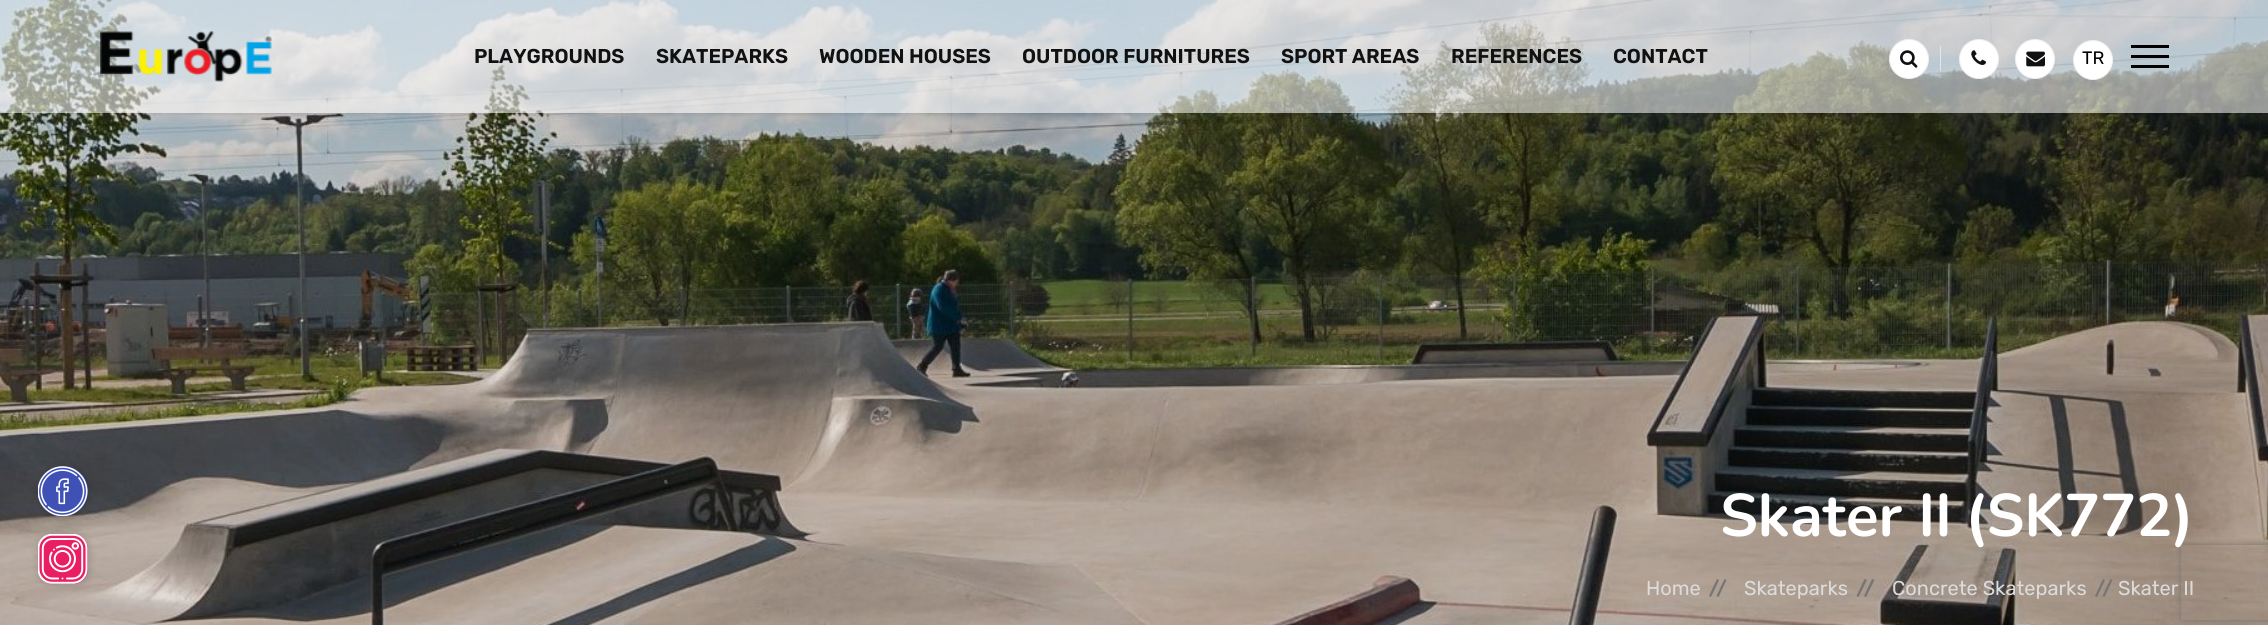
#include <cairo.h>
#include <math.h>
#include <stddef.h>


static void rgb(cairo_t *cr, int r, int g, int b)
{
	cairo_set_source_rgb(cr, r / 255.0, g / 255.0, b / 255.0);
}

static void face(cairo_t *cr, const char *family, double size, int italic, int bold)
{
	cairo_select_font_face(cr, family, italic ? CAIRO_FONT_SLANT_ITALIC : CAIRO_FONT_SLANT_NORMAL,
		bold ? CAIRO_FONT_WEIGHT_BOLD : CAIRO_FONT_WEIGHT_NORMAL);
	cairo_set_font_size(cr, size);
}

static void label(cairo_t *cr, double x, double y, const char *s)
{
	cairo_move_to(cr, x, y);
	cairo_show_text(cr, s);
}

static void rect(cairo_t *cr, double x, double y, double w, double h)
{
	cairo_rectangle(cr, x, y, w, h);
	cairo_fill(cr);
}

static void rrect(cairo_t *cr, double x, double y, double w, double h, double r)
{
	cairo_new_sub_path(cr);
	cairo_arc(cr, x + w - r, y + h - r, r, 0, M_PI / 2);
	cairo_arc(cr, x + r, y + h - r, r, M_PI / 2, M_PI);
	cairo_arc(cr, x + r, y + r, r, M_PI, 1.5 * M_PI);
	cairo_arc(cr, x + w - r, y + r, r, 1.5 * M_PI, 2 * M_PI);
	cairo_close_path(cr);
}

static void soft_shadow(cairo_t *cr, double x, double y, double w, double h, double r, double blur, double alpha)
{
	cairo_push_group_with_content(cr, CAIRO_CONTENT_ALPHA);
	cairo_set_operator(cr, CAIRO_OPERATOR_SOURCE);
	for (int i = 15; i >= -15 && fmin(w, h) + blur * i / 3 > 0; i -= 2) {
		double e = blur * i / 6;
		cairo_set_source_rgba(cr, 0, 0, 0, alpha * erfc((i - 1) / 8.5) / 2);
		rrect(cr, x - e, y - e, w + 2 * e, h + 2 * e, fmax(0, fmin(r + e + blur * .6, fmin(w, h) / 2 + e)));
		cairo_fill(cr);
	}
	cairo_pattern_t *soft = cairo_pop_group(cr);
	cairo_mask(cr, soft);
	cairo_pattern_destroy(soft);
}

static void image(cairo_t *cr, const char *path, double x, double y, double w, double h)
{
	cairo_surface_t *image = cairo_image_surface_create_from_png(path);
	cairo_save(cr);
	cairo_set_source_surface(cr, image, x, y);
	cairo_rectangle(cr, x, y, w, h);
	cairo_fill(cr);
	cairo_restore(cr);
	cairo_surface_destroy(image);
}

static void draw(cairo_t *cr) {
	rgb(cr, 255, 255, 255);
	cairo_paint(cr);
	image(cr, "image6.png", 0, 0, 2268, 625);
	cairo_save(cr);
	cairo_set_fill_rule(cr, CAIRO_FILL_RULE_EVEN_ODD);
	cairo_new_path(cr);
	cairo_move_to(cr, 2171, 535);
	cairo_line_to(cr, 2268, 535);
	cairo_line_to(cr, 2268, 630);
	cairo_line_to(cr, 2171, 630);
	cairo_close_path(cr);
	cairo_move_to(cr, 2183.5, 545);
	cairo_line_to(cr, 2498.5, 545);
	cairo_curve_to(cr, 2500, 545, 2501, 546, 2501, 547.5);
	cairo_line_to(cr, 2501, 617.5);
	cairo_curve_to(cr, 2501, 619, 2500, 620, 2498.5, 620);
	cairo_line_to(cr, 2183.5, 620);
	cairo_curve_to(cr, 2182, 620, 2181, 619, 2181, 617.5);
	cairo_line_to(cr, 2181, 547.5);
	cairo_curve_to(cr, 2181, 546, 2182, 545, 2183.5, 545);
	cairo_close_path(cr);
	cairo_clip(cr);
	rgb(cr, 128, 128, 128);
	soft_shadow(cr, 2181, 545, 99, 75, 2.5, 3, 1);
	cairo_restore(cr);
	cairo_set_source_rgba(cr, 0, 0, 0, 0.1);
	rect(cr, 0, 0, 2268, 625);
	rgb(cr, 0, 0, 0);
	soft_shadow(cr, 38, 466, 52, 53, 26, 4, 0.15);
	rgb(cr, 63, 81, 181);
	cairo_arc(cr, 63, 491, 25, 0, 2 * M_PI);
	cairo_fill(cr);
	image(cr, "image0.png", 38, 466, 50, 50);
	rgb(cr, 0, 0, 0);
	soft_shadow(cr, 38, 534, 52, 52, 16, 4, 0.15);
	rgb(cr, 233, 30, 99);
	rrect(cr, 38, 534, 50, 50, 15);
	cairo_fill(cr);
	image(cr, "image1.png", 38, 534, 50, 50);
	cairo_save(cr);
	cairo_set_fill_rule(cr, CAIRO_FILL_RULE_EVEN_ODD);
	cairo_new_path(cr);
	cairo_move_to(cr, 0, 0);
	cairo_line_to(cr, 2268, 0);
	cairo_line_to(cr, 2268, 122);
	cairo_line_to(cr, 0, 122);
	cairo_close_path(cr);
	cairo_move_to(cr, 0, 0);
	cairo_line_to(cr, 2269, 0);
	cairo_line_to(cr, 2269, 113);
	cairo_line_to(cr, 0, 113);
	cairo_close_path(cr);
	cairo_clip(cr);
	rgb(cr, 0, 0, 0);
	soft_shadow(cr, 0, 0, 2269, 113, 0, 2.5, 0.2);
	cairo_restore(cr);
	cairo_set_source_rgba(cr, 1, 1, 1, 0.55);
	rect(cr, 0, 0, 2268, 113);
	image(cr, "image2.png", 100, 31, 172, 51);
	face(cr, "Rubik SemiBold", 20, 0, 0);
	rgb(cr, 17, 17, 17);
	label(cr, 474, 63, "PLAYGROUNDS");
	label(cr, 656, 63, "SKATEPARKS");
	label(cr, 819, 63, "WOODEN HOUSES");
	label(cr, 1022, 63, "OUTDOOR FURNITURES");
	label(cr, 1281, 63, "SPORT AREAS");
	label(cr, 1451, 63, "REFERENCES");
	label(cr, 1613, 63, "CONTACT");
	rgb(cr, 255, 255, 255);
	cairo_new_path(cr);
	cairo_arc(cr, 1909, 59, 19.5, 0, 2 * M_PI);
	cairo_fill_preserve(cr);
	rgb(cr, 238, 238, 238);
	cairo_set_line_width(cr, 1);
	cairo_stroke(cr);
	image(cr, "image3.png", 1900, 50, 18, 18);
	rgb(cr, 230, 230, 230);
	rect(cr, 1940, 46, 1, 25);
	rgb(cr, 255, 255, 255);
	cairo_arc(cr, 1979, 59, 19.5, 0, 2 * M_PI);
	cairo_fill_preserve(cr);
	rgb(cr, 238, 238, 238);
	cairo_stroke(cr);
	image(cr, "image4.png", 1971, 50, 15, 15);
	rgb(cr, 255, 255, 255);
	cairo_arc(cr, 2035, 59, 19.5, 0, 2 * M_PI);
	cairo_fill_preserve(cr);
	rgb(cr, 238, 238, 238);
	cairo_stroke(cr);
	image(cr, "image5.png", 2026, 51, 19, 16);
	rgb(cr, 255, 255, 255);
	cairo_arc(cr, 2093, 60, 19.5, 0, 2 * M_PI);
	cairo_fill_preserve(cr);
	rgb(cr, 238, 238, 238);
	cairo_stroke(cr);
	face(cr, "Rubik", 18, 0, 0);
	rgb(cr, 0, 0, 0);
	label(cr, 2082, 64, "TR");
	rect(cr, 2131, 45, 38, 3);
	rect(cr, 2131, 55, 38, 3);
	rect(cr, 2131, 65, 38, 3);
	face(cr, "Nunito", 60, 0, 1);
	rgb(cr, 255, 255, 255);
	label(cr, 1720, 536, "Skater II");
	label(cr, 1965, 536, "(SK772)");
	face(cr, "Rubik", 20, 0, 0);
	rgb(cr, 220, 220, 220);
	label(cr, 1646, 595, "Home");
	rgb(cr, 117, 117, 117);
	cairo_new_path(cr);
	cairo_move_to(cr, 1717, 579);
	cairo_line_to(cr, 1719, 580);
	cairo_line_to(cr, 1711, 597);
	cairo_line_to(cr, 1709, 596);
	cairo_close_path(cr);
	cairo_fill(cr);
	cairo_new_path(cr);
	cairo_move_to(cr, 1724.5, 579);
	cairo_line_to(cr, 1726.5, 580);
	cairo_line_to(cr, 1718.5, 597);
	cairo_line_to(cr, 1716.5, 596);
	cairo_close_path(cr);
	cairo_fill(cr);
	rgb(cr, 220, 220, 220);
	label(cr, 1744, 595, "Skateparks");
	rgb(cr, 117, 117, 117);
	cairo_new_path(cr);
	cairo_move_to(cr, 1864.5, 579);
	cairo_line_to(cr, 1867, 580);
	cairo_line_to(cr, 1858.5, 597);
	cairo_line_to(cr, 1856.5, 596);
	cairo_close_path(cr);
	cairo_fill(cr);
	cairo_new_path(cr);
	cairo_move_to(cr, 1872, 579);
	cairo_line_to(cr, 1874.5, 580);
	cairo_line_to(cr, 1866, 597);
	cairo_line_to(cr, 1864, 596);
	cairo_close_path(cr);
	cairo_fill(cr);
	rgb(cr, 220, 220, 220);
	label(cr, 1892, 595, "Concrete Skateparks");
	rgb(cr, 117, 117, 117);
	cairo_new_path(cr);
	cairo_move_to(cr, 2103, 579);
	cairo_line_to(cr, 2105, 580);
	cairo_line_to(cr, 2097, 597);
	cairo_line_to(cr, 2095, 596);
	cairo_close_path(cr);
	cairo_fill(cr);
	cairo_new_path(cr);
	cairo_move_to(cr, 2110.5, 579);
	cairo_line_to(cr, 2112.5, 580);
	cairo_line_to(cr, 2104.5, 597);
	cairo_line_to(cr, 2102.5, 596);
	cairo_close_path(cr);
	cairo_fill(cr);
	rgb(cr, 220, 220, 220);
	label(cr, 2118, 595, "Skater II");
}

int main(void) {
	cairo_surface_t *surface = cairo_image_surface_create(CAIRO_FORMAT_RGB24, 2268, 637);
	cairo_t *cr = cairo_create(surface);
	cairo_font_options_t *options = cairo_font_options_create();
	cairo_font_options_set_hint_metrics(options, CAIRO_HINT_METRICS_OFF);
	cairo_font_options_set_hint_style(options, CAIRO_HINT_STYLE_NONE);
	cairo_set_font_options(cr, options);
	cairo_set_miter_limit(cr, 4);
	draw(cr);
	cairo_surface_write_to_png(surface, "render.png");
	cairo_font_options_destroy(options);
	cairo_destroy(cr);
	cairo_surface_destroy(surface);
	return 0;
}
